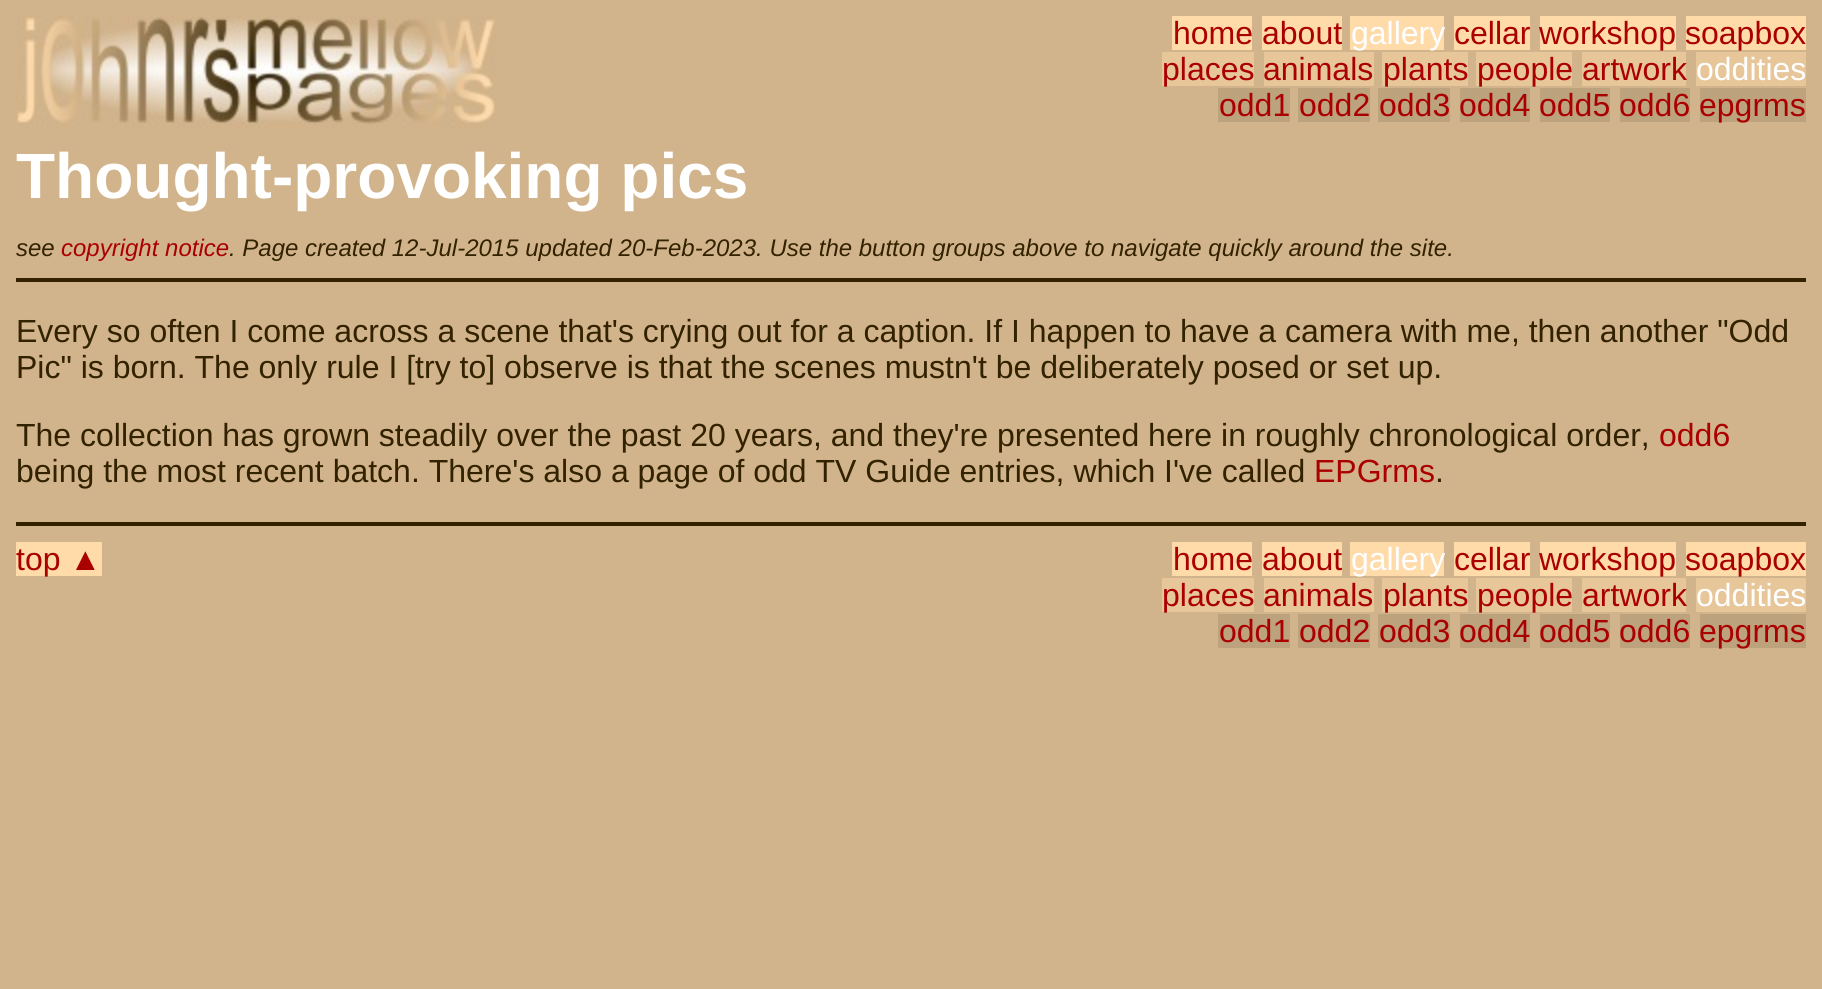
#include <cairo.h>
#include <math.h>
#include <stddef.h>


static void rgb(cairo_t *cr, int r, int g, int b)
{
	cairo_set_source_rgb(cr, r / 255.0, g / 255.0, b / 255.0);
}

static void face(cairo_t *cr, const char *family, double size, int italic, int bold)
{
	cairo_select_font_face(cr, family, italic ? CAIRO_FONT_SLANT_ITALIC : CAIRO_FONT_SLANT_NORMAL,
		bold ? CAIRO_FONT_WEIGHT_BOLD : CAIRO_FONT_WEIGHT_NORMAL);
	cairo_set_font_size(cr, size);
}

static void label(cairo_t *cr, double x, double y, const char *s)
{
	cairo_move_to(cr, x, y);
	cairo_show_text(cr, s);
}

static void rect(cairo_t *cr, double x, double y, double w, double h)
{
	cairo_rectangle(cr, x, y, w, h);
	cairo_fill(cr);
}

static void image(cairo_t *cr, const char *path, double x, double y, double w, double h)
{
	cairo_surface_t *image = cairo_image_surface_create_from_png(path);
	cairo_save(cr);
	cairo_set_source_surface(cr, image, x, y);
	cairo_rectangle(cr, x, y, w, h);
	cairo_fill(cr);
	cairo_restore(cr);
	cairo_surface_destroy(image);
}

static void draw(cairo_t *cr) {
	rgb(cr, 210, 180, 140);
	cairo_paint(cr);
	image(cr, "image0.png", 16, 16, 480, 112);
	rgb(cr, 255, 219, 170);
	rect(cr, 1172, 16, 80, 34);
	face(cr, "Liberation Sans", 32, 0, 0);
	rgb(cr, 170, 0, 0);
	label(cr, 1173, 44, "home");
	rgb(cr, 255, 219, 170);
	rect(cr, 1262, 16, 80, 34);
	rgb(cr, 170, 0, 0);
	label(cr, 1262, 44, "about");
	rgb(cr, 255, 219, 170);
	rect(cr, 1350, 16, 94, 34);
	rgb(cr, 255, 255, 255);
	label(cr, 1351, 44, "gallery");
	rgb(cr, 255, 219, 170);
	rect(cr, 1454, 16, 76, 34);
	rgb(cr, 170, 0, 0);
	label(cr, 1454, 44, "cellar");
	rgb(cr, 255, 219, 170);
	rect(cr, 1540, 16, 136, 34);
	rgb(cr, 170, 0, 0);
	label(cr, 1539, 44, "workshop");
	rgb(cr, 255, 219, 170);
	rect(cr, 1686, 16, 120, 34);
	rgb(cr, 170, 0, 0);
	label(cr, 1685, 44, "soapbox");
	rgb(cr, 231, 198, 154);
	rect(cr, 1162, 52, 92, 34);
	rgb(cr, 170, 0, 0);
	label(cr, 1162, 80, "places");
	rgb(cr, 231, 198, 154);
	rect(cr, 1264, 52, 110, 34);
	rgb(cr, 170, 0, 0);
	label(cr, 1263, 80, "animals");
	rgb(cr, 231, 198, 154);
	rect(cr, 1382, 52, 86, 34);
	rgb(cr, 170, 0, 0);
	label(cr, 1383, 80, "plants");
	rgb(cr, 231, 198, 154);
	rect(cr, 1476, 52, 96, 34);
	rgb(cr, 170, 0, 0);
	label(cr, 1477, 80, "people");
	rgb(cr, 231, 198, 154);
	rect(cr, 1582, 52, 104, 34);
	rgb(cr, 170, 0, 0);
	label(cr, 1582, 80, "artwork");
	rgb(cr, 231, 198, 154);
	rect(cr, 1696, 52, 110, 34);
	rgb(cr, 255, 255, 255);
	label(cr, 1696, 80, "oddities");
	rgb(cr, 189, 162, 126);
	rect(cr, 1218, 88, 72, 34);
	rgb(cr, 170, 0, 0);
	label(cr, 1219, 116, "odd1");
	rgb(cr, 189, 162, 126);
	rect(cr, 1298, 88, 72, 34);
	rgb(cr, 170, 0, 0);
	label(cr, 1299, 116, "odd2");
	rgb(cr, 189, 162, 126);
	rect(cr, 1378, 88, 72, 34);
	rgb(cr, 170, 0, 0);
	label(cr, 1379, 116, "odd3");
	rgb(cr, 189, 162, 126);
	rect(cr, 1460, 88, 70, 34);
	rgb(cr, 170, 0, 0);
	label(cr, 1459, 116, "odd4");
	rgb(cr, 189, 162, 126);
	rect(cr, 1540, 88, 70, 34);
	rgb(cr, 170, 0, 0);
	label(cr, 1539, 116, "odd5");
	rgb(cr, 189, 162, 126);
	rect(cr, 1620, 88, 70, 34);
	rgb(cr, 170, 0, 0);
	label(cr, 1619, 116, "odd6");
	rgb(cr, 189, 162, 126);
	rect(cr, 1700, 88, 106, 34);
	rgb(cr, 170, 0, 0);
	label(cr, 1699, 116, "epgrms");
	face(cr, "Liberation Sans", 64, 0, 1);
	rgb(cr, 255, 255, 255);
	label(cr, 16, 198, "Thought-provoking pics");
	face(cr, "Liberation Sans", 24, 1, 0);
	rgb(cr, 51, 34, 0);
	label(cr, 16, 256, "see");
	rgb(cr, 170, 0, 0);
	label(cr, 61, 256, "copyright notice");
	rgb(cr, 51, 34, 0);
	label(cr, 229, 256, ". Page created 12-Jul-2015 updated 20-Feb-2023. Use the button groups above to navigate quickly around the site.");
	rect(cr, 16, 278, 1790, 4);
	face(cr, "Liberation Sans", 32, 0, 0);
	label(cr, 16, 342, "Every so often I come across a scene that's crying out for a caption. If I happen to have a camera with me, then another \"Odd");
	label(cr, 16, 378, "Pic\" is born. The only rule I [try to] observe is that the scenes mustn't be deliberately posed or set up.");
	label(cr, 16, 446, "The collection has grown steadily over the past 20 years, and they're presented here in roughly chronological order,");
	rgb(cr, 170, 0, 0);
	label(cr, 1659, 446, "odd6");
	rgb(cr, 51, 34, 0);
	label(cr, 16, 482, "being the most recent batch. There's also a page of odd TV Guide entries, which I've called");
	rgb(cr, 170, 0, 0);
	label(cr, 1314, 482, "EPGrms");
	rgb(cr, 51, 34, 0);
	label(cr, 1435, 482, ".");
	rect(cr, 16, 522, 1790, 4);
	rgb(cr, 255, 219, 170);
	rect(cr, 16, 542, 86, 34);
	rgb(cr, 170, 0, 0);
	label(cr, 16, 570, "top ▲");
	rgb(cr, 255, 219, 170);
	rect(cr, 1172, 542, 80, 34);
	rgb(cr, 170, 0, 0);
	label(cr, 1173, 570, "home");
	rgb(cr, 255, 219, 170);
	rect(cr, 1262, 542, 80, 34);
	rgb(cr, 170, 0, 0);
	label(cr, 1262, 570, "about");
	rgb(cr, 255, 219, 170);
	rect(cr, 1350, 542, 94, 34);
	rgb(cr, 255, 255, 255);
	label(cr, 1351, 570, "gallery");
	rgb(cr, 255, 219, 170);
	rect(cr, 1454, 542, 76, 34);
	rgb(cr, 170, 0, 0);
	label(cr, 1454, 570, "cellar");
	rgb(cr, 255, 219, 170);
	rect(cr, 1540, 542, 136, 34);
	rgb(cr, 170, 0, 0);
	label(cr, 1539, 570, "workshop");
	rgb(cr, 255, 219, 170);
	rect(cr, 1686, 542, 120, 34);
	rgb(cr, 170, 0, 0);
	label(cr, 1685, 570, "soapbox");
	rgb(cr, 231, 198, 154);
	rect(cr, 1162, 578, 92, 34);
	rgb(cr, 170, 0, 0);
	label(cr, 1162, 606, "places");
	rgb(cr, 231, 198, 154);
	rect(cr, 1264, 578, 110, 34);
	rgb(cr, 170, 0, 0);
	label(cr, 1263, 606, "animals");
	rgb(cr, 231, 198, 154);
	rect(cr, 1382, 578, 86, 34);
	rgb(cr, 170, 0, 0);
	label(cr, 1383, 606, "plants");
	rgb(cr, 231, 198, 154);
	rect(cr, 1476, 578, 96, 34);
	rgb(cr, 170, 0, 0);
	label(cr, 1477, 606, "people");
	rgb(cr, 231, 198, 154);
	rect(cr, 1582, 578, 104, 34);
	rgb(cr, 170, 0, 0);
	label(cr, 1582, 606, "artwork");
	rgb(cr, 231, 198, 154);
	rect(cr, 1696, 578, 110, 34);
	rgb(cr, 255, 255, 255);
	label(cr, 1696, 606, "oddities");
	rgb(cr, 189, 162, 126);
	rect(cr, 1218, 614, 72, 34);
	rgb(cr, 170, 0, 0);
	label(cr, 1219, 642, "odd1");
	rgb(cr, 189, 162, 126);
	rect(cr, 1298, 614, 72, 34);
	rgb(cr, 170, 0, 0);
	label(cr, 1299, 642, "odd2");
	rgb(cr, 189, 162, 126);
	rect(cr, 1378, 614, 72, 34);
	rgb(cr, 170, 0, 0);
	label(cr, 1379, 642, "odd3");
	rgb(cr, 189, 162, 126);
	rect(cr, 1460, 614, 70, 34);
	rgb(cr, 170, 0, 0);
	label(cr, 1459, 642, "odd4");
	rgb(cr, 189, 162, 126);
	rect(cr, 1540, 614, 70, 34);
	rgb(cr, 170, 0, 0);
	label(cr, 1539, 642, "odd5");
	rgb(cr, 189, 162, 126);
	rect(cr, 1620, 614, 70, 34);
	rgb(cr, 170, 0, 0);
	label(cr, 1619, 642, "odd6");
	rgb(cr, 189, 162, 126);
	rect(cr, 1700, 614, 106, 34);
	rgb(cr, 170, 0, 0);
	label(cr, 1699, 642, "epgrms");
}

int main(void) {
	cairo_surface_t *surface = cairo_image_surface_create(CAIRO_FORMAT_RGB24, 1822, 989);
	cairo_t *cr = cairo_create(surface);
	cairo_font_options_t *options = cairo_font_options_create();
	cairo_font_options_set_hint_metrics(options, CAIRO_HINT_METRICS_OFF);
	cairo_font_options_set_hint_style(options, CAIRO_HINT_STYLE_NONE);
	cairo_set_font_options(cr, options);
	cairo_set_miter_limit(cr, 4);
	draw(cr);
	cairo_surface_write_to_png(surface, "render.png");
	cairo_font_options_destroy(options);
	cairo_destroy(cr);
	cairo_surface_destroy(surface);
	return 0;
}
